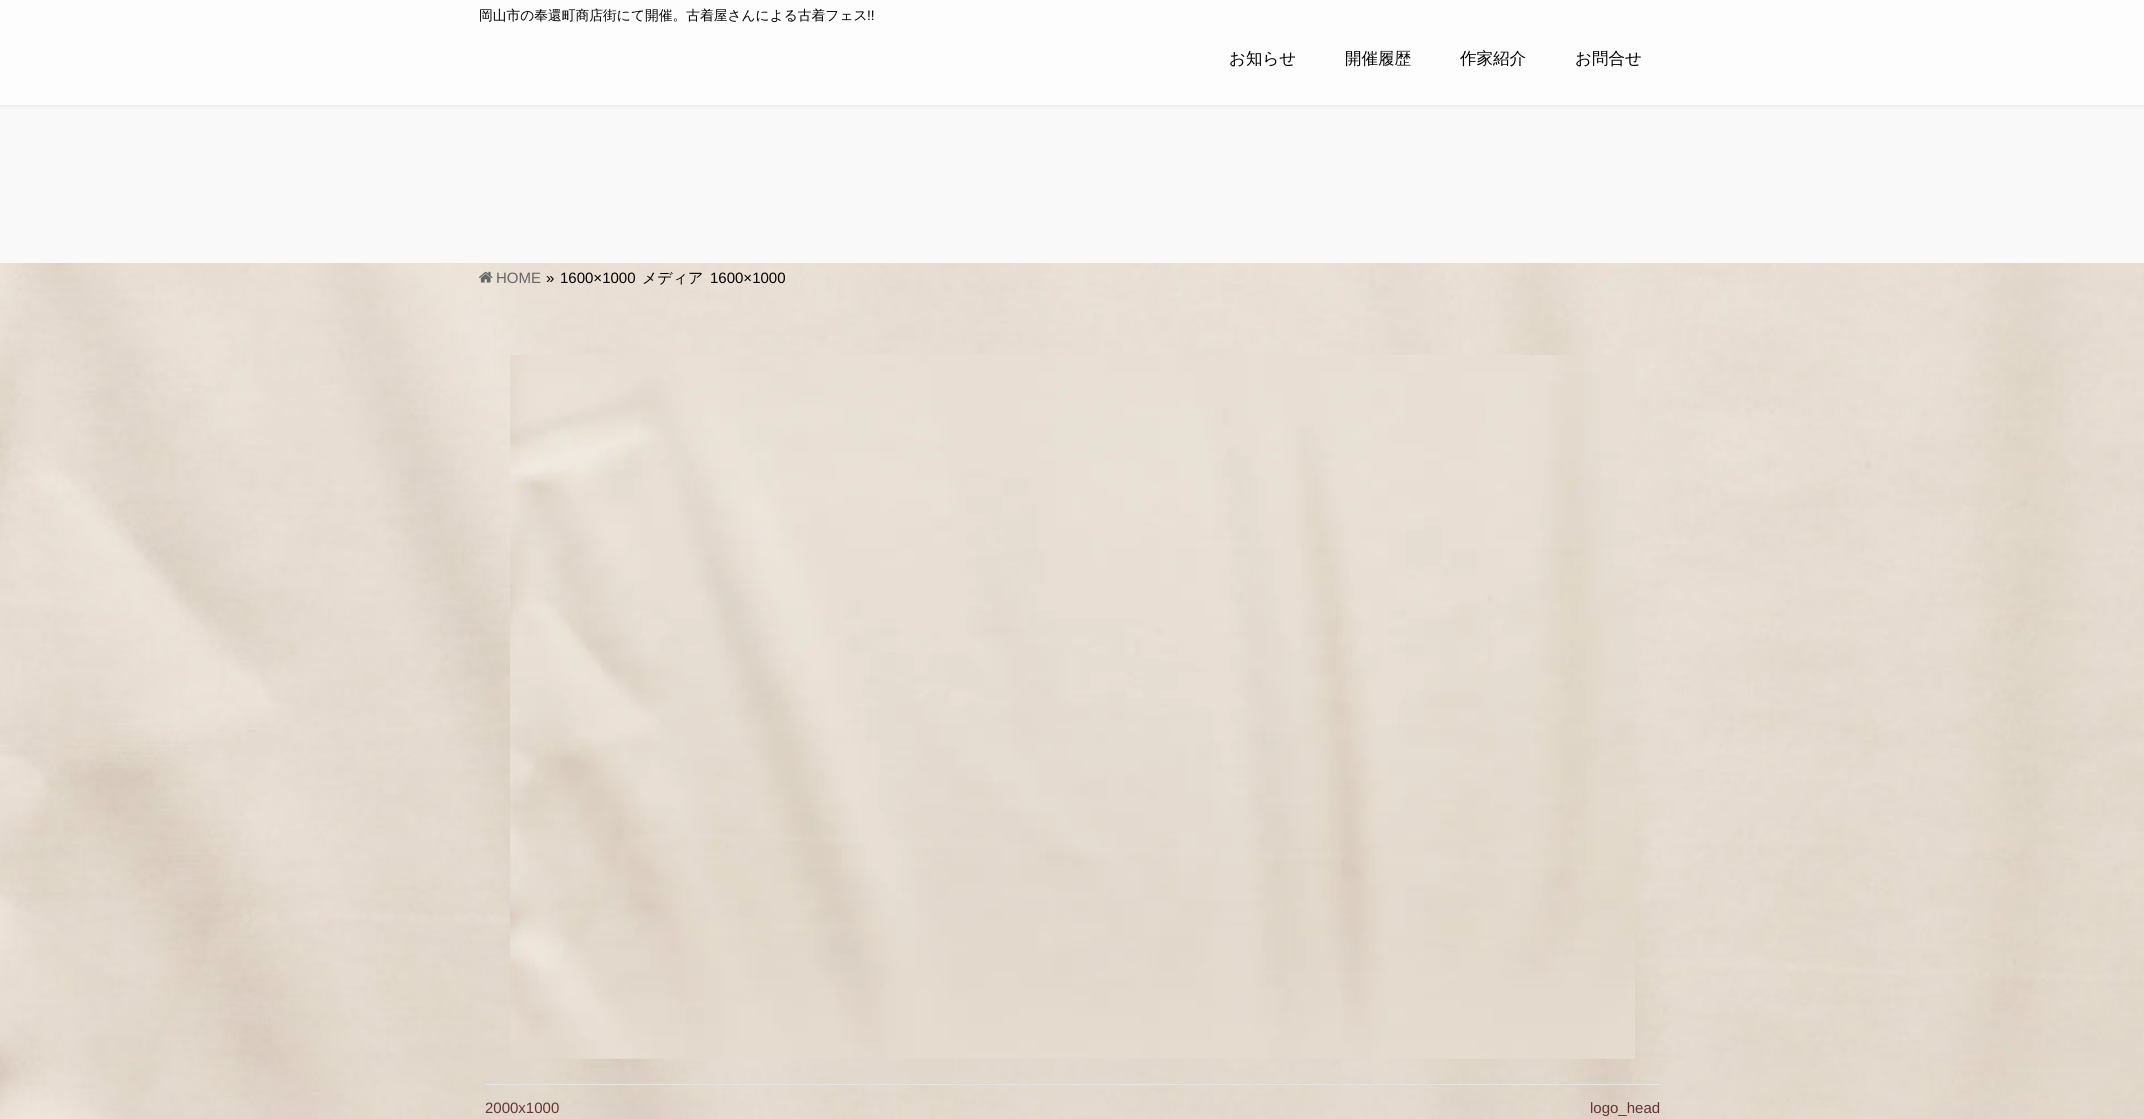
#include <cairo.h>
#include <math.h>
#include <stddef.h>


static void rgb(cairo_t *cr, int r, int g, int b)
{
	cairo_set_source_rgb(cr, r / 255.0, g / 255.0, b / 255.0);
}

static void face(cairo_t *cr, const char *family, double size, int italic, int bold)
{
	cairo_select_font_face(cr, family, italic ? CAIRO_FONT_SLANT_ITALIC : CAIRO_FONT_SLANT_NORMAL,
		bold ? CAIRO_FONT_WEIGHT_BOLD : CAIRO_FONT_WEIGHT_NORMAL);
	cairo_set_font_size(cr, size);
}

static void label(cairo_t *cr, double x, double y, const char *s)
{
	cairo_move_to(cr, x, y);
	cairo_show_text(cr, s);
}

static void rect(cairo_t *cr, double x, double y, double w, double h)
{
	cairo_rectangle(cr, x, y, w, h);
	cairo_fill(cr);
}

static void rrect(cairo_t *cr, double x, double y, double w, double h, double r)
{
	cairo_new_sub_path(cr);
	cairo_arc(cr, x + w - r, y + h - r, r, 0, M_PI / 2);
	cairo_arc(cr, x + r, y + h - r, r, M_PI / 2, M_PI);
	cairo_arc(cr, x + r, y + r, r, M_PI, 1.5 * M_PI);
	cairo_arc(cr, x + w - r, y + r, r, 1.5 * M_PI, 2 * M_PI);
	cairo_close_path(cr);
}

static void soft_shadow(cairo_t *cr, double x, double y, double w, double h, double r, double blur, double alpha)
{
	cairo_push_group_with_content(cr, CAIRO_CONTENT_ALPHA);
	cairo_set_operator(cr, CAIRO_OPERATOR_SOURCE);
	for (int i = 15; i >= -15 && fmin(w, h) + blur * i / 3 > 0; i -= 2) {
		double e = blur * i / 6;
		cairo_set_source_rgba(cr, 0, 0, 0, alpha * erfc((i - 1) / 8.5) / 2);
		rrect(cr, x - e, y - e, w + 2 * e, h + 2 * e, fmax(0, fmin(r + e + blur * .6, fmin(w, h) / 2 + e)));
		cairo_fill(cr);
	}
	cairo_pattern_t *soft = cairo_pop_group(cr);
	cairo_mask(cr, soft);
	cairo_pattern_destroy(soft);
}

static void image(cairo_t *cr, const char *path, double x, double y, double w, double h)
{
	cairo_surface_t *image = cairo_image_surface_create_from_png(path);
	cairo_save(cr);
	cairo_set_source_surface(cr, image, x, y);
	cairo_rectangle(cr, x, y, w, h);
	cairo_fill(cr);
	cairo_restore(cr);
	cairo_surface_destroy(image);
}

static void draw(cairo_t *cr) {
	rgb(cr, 255, 255, 255);
	cairo_paint(cr);
	image(cr, "image0.png", 0, 263, 2144, 856);
	rgb(cr, 249, 249, 249);
	rect(cr, 0, 105, 2144, 158);
	rgb(cr, 0, 0, 0);
	soft_shadow(cr, 0, 1, 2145, 105, 0, 2, 0.1);
	rgb(cr, 253, 253, 253);
	rect(cr, 0, 0, 2144, 105);
	face(cr, "WenQuanYi Zen Hei Medium", 13.75, 0, 0);
	rgb(cr, 0, 0, 0);
	label(cr, 479, 20, "岡山市の奉還町商店街にて開催。古着屋さんによる古着フェス");
	face(cr, "Liberation Sans", 13.75, 0, 0);
	label(cr, 867, 20, "!!");
	face(cr, "WenQuanYi Zen Hei Medium", 16.5, 0, 0);
	label(cr, 1229, 64, "お知らせ");
	label(cr, 1345, 64, "開催履歴");
	label(cr, 1460, 64, "作家紹介");
	label(cr, 1575, 64, "お問合せ");
	image(cr, "image1.png", 479, 271, 14, 12);
	face(cr, "Liberation Sans", 15, 0, 0);
	rgb(cr, 102, 102, 102);
	label(cr, 496, 283, "HOME");
	rgb(cr, 0, 0, 0);
	label(cr, 546, 283, "»");
	label(cr, 560, 283, "1600×1000");
	face(cr, "WenQuanYi Zen Hei Medium", 15, 0, 0);
	label(cr, 642, 283, "メディア");
	face(cr, "Liberation Sans", 15, 0, 0);
	label(cr, 710, 283, "1600×1000");
	image(cr, "image2.png", 510, 355, 1125, 704);
	rgb(cr, 229, 229, 229);
	rect(cr, 485, 1084, 1175, 1);
	rgb(cr, 102, 51, 51);
	label(cr, 485, 1113, "2000x1000");
	label(cr, 1590, 1113, "logo_head");
}

int main(void) {
	cairo_surface_t *surface = cairo_image_surface_create(CAIRO_FORMAT_RGB24, 2144, 1119);
	cairo_t *cr = cairo_create(surface);
	cairo_font_options_t *options = cairo_font_options_create();
	cairo_font_options_set_hint_metrics(options, CAIRO_HINT_METRICS_OFF);
	cairo_font_options_set_hint_style(options, CAIRO_HINT_STYLE_NONE);
	cairo_set_font_options(cr, options);
	cairo_set_miter_limit(cr, 4);
	draw(cr);
	cairo_surface_write_to_png(surface, "render.png");
	cairo_font_options_destroy(options);
	cairo_destroy(cr);
	cairo_surface_destroy(surface);
	return 0;
}
